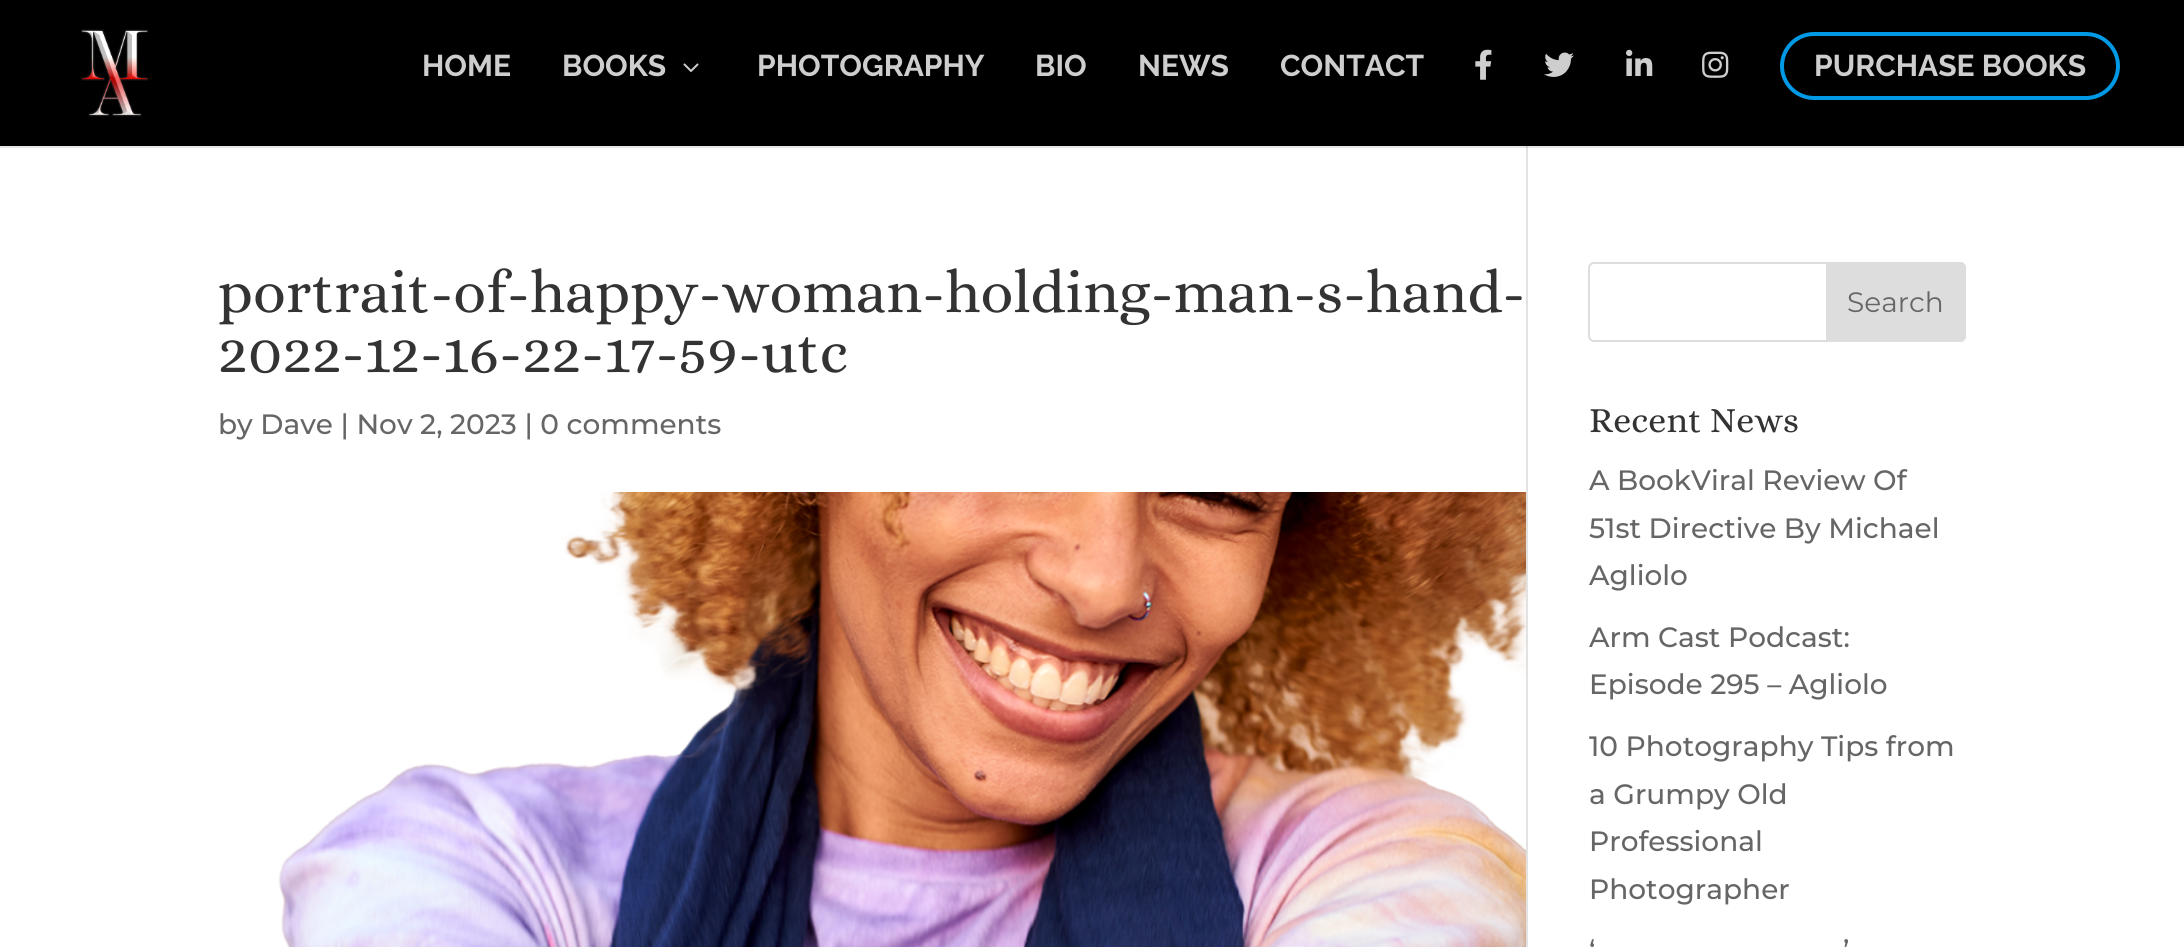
#include <cairo.h>
#include <math.h>
#include <stddef.h>


static void rgb(cairo_t *cr, int r, int g, int b)
{
	cairo_set_source_rgb(cr, r / 255.0, g / 255.0, b / 255.0);
}

static void face(cairo_t *cr, const char *family, double size, int italic, int bold)
{
	cairo_select_font_face(cr, family, italic ? CAIRO_FONT_SLANT_ITALIC : CAIRO_FONT_SLANT_NORMAL,
		bold ? CAIRO_FONT_WEIGHT_BOLD : CAIRO_FONT_WEIGHT_NORMAL);
	cairo_set_font_size(cr, size);
}

static void label(cairo_t *cr, double x, double y, const char *s)
{
	cairo_move_to(cr, x, y);
	cairo_show_text(cr, s);
}

static void rect(cairo_t *cr, double x, double y, double w, double h)
{
	cairo_rectangle(cr, x, y, w, h);
	cairo_fill(cr);
}

static void rrect(cairo_t *cr, double x, double y, double w, double h, double r)
{
	cairo_new_sub_path(cr);
	cairo_arc(cr, x + w - r, y + h - r, r, 0, M_PI / 2);
	cairo_arc(cr, x + r, y + h - r, r, M_PI / 2, M_PI);
	cairo_arc(cr, x + r, y + r, r, M_PI, 1.5 * M_PI);
	cairo_arc(cr, x + w - r, y + r, r, 1.5 * M_PI, 2 * M_PI);
	cairo_close_path(cr);
}

static void image(cairo_t *cr, const char *path, double x, double y, double w, double h)
{
	cairo_surface_t *image = cairo_image_surface_create_from_png(path);
	cairo_save(cr);
	cairo_set_source_surface(cr, image, x, y);
	cairo_rectangle(cr, x, y, w, h);
	cairo_fill(cr);
	cairo_restore(cr);
	cairo_surface_destroy(image);
}

static void draw(cairo_t *cr) {
	rgb(cr, 255, 255, 255);
	cairo_paint(cr);
	rgb(cr, 230, 230, 230);
	rect(cr, 0, 146, 2184, 2);
	rgb(cr, 0, 0, 0);
	rect(cr, 0, 0, 2184, 146);
	image(cr, "image0.png", 81, 29, 68, 88);
	face(cr, "Raleway Thin", 30, 0, 0);
	rgb(cr, 206, 206, 206);
	label(cr, 422, 76, "HOME");
	label(cr, 562, 76, "BOOKS");
	image(cr, "image1.png", 683, 63, 16, 9);
	label(cr, 757, 76, "PHOTOGRAPHY");
	label(cr, 1035, 76, "BIO");
	label(cr, 1138, 76, "NEWS");
	label(cr, 1280, 76, "CONTACT");
	image(cr, "image2.png", 1475, 49, 17, 31);
	image(cr, "image3.png", 1544, 52, 30, 25);
	image(cr, "image4.png", 1626, 49, 27, 27);
	image(cr, "image5.png", 1702, 51, 27, 27);
	rrect(cr, 1782, 34, 336, 64, 32);
	rgb(cr, 0, 153, 229);
	cairo_set_line_width(cr, 4);
	cairo_stroke(cr);
	rgb(cr, 206, 206, 206);
	label(cr, 1814, 76, "PURCHASE BOOKS");
	rgb(cr, 226, 226, 226);
	rect(cr, 1526, 146, 2, 801);
	rgb(cr, 203, 203, 203);
	rect(cr, 1526, 146, 2, 2);
	face(cr, "Alice", 60, 0, 0);
	rgb(cr, 51, 51, 51);
	label(cr, 218, 312, "portrait-of-happy-woman-holding-man-s-hand-");
	label(cr, 218, 372, "2022-12-16-22-17-59-utc");
	face(cr, "Montserrat Thin", 28, 0, 0);
	rgb(cr, 102, 102, 102);
	label(cr, 218, 434, "by Dave | Nov 2, 2023 | 0 comments");
	image(cr, "image6.png", 278, 492, 1248, 455);
	rrect(cr, 1589, 263, 376, 78, 5);
	rgb(cr, 221, 221, 221);
	cairo_set_line_width(cr, 2);
	cairo_stroke(cr);
	cairo_new_path(cr);
	cairo_move_to(cr, 1827, 263);
	cairo_line_to(cr, 1960, 263);
	cairo_curve_to(cr, 1963, 263, 1965, 265, 1965, 268);
	cairo_line_to(cr, 1965, 336);
	cairo_curve_to(cr, 1965, 339, 1963, 341, 1960, 341);
	cairo_line_to(cr, 1827, 341);
	cairo_close_path(cr);
	cairo_fill_preserve(cr);
	cairo_stroke(cr);
	face(cr, "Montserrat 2 Thin", 28, 0, 0);
	rgb(cr, 102, 102, 102);
	label(cr, 1847, 312, "Search");
	face(cr, "Alice", 36, 0, 0);
	rgb(cr, 51, 51, 51);
	label(cr, 1589, 432, "Recent News");
	face(cr, "Montserrat Thin", 28, 0, 0);
	rgb(cr, 102, 102, 102);
	label(cr, 1589, 490, "A BookViral Review Of");
	label(cr, 1589, 538, "51st Directive By Michael");
	label(cr, 1589, 585, "Agliolo");
	label(cr, 1589, 647, "Arm Cast Podcast:");
	label(cr, 1589, 694, "Episode 295 – Agliolo");
	label(cr, 1589, 756, "10 Photography Tips from");
	label(cr, 1589, 804, "a Grumpy Old");
	label(cr, 1589, 851, "Professional");
	label(cr, 1589, 899, "Photographer");
	label(cr, 1589, 960, "‘");
	label(cr, 1843, 960, "’");
}

int main(void) {
	cairo_surface_t *surface = cairo_image_surface_create(CAIRO_FORMAT_RGB24, 2184, 947);
	cairo_t *cr = cairo_create(surface);
	cairo_font_options_t *options = cairo_font_options_create();
	cairo_font_options_set_hint_metrics(options, CAIRO_HINT_METRICS_OFF);
	cairo_font_options_set_hint_style(options, CAIRO_HINT_STYLE_NONE);
	cairo_set_font_options(cr, options);
	cairo_set_miter_limit(cr, 4);
	draw(cr);
	cairo_surface_write_to_png(surface, "render.png");
	cairo_font_options_destroy(options);
	cairo_destroy(cr);
	cairo_surface_destroy(surface);
	return 0;
}
